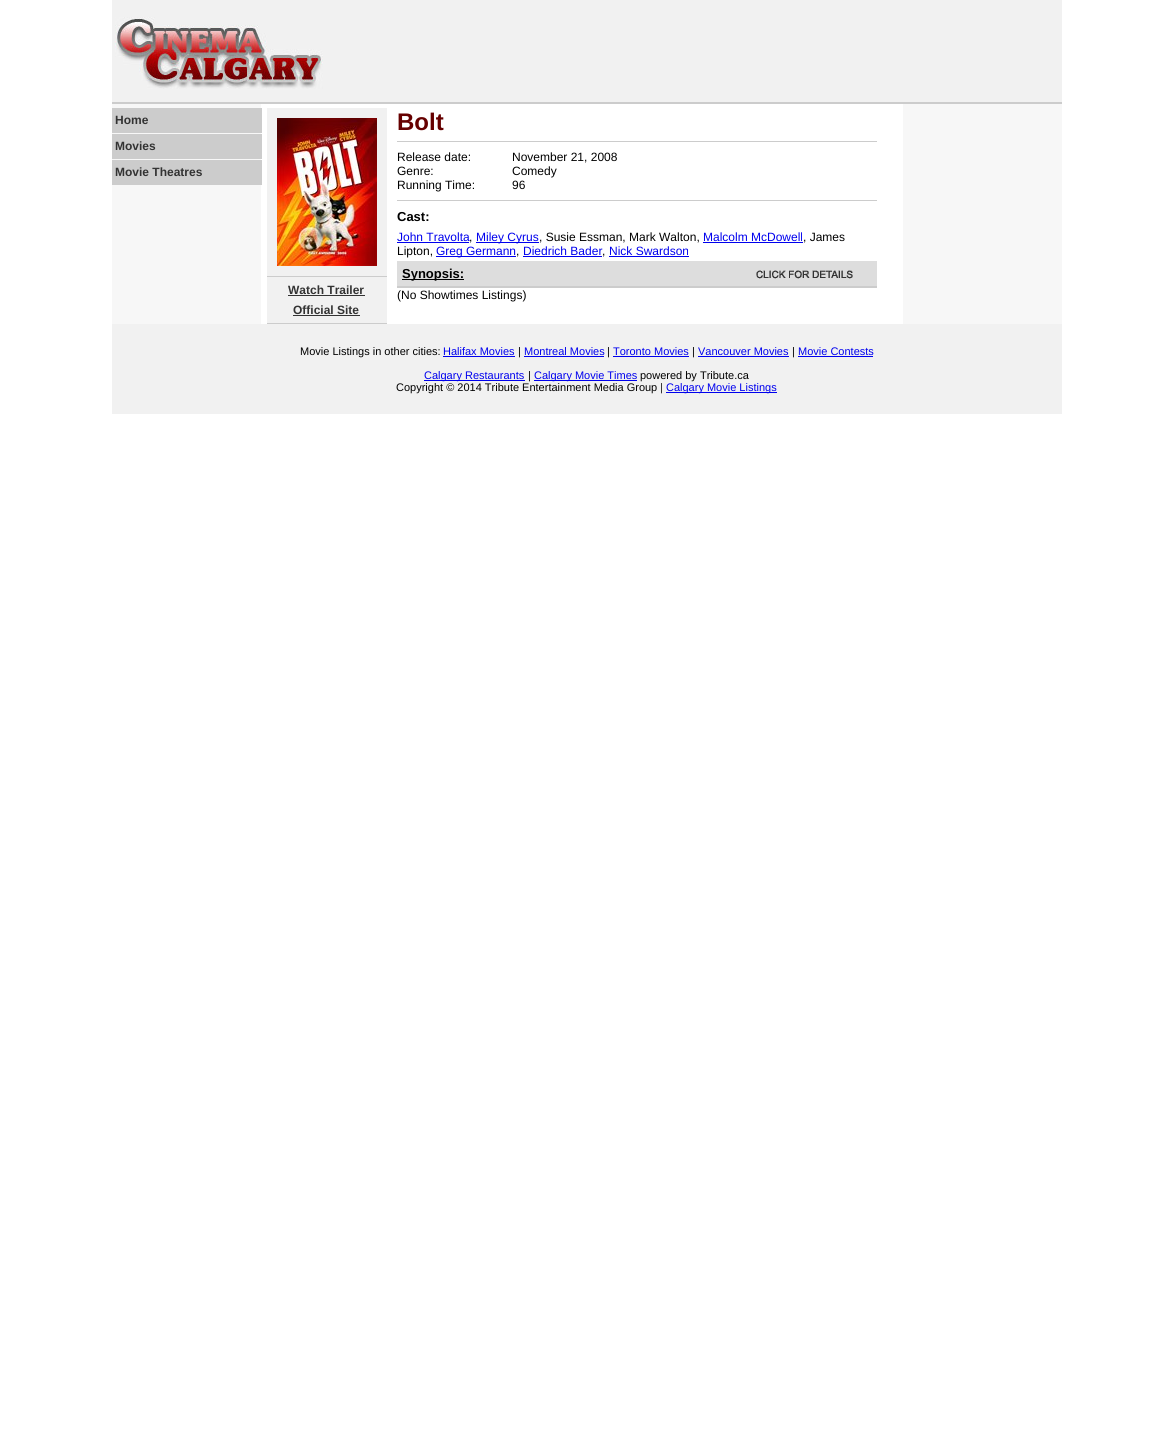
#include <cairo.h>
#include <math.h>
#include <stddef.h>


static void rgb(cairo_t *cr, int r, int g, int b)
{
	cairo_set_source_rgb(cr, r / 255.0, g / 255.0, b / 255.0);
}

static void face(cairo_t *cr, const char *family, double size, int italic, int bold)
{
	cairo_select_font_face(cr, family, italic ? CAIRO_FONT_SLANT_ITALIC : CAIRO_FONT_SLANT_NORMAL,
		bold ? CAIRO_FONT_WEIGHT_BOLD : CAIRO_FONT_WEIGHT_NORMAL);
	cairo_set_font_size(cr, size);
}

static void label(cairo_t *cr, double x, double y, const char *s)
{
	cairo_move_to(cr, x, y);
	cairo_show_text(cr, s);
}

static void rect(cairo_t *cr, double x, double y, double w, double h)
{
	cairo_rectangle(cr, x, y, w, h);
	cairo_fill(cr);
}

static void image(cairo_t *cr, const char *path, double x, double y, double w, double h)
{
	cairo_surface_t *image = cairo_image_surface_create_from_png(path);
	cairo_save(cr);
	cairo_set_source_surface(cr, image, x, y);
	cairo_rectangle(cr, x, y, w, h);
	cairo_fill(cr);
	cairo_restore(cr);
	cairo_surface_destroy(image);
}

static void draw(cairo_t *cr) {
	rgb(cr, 255, 255, 255);
	cairo_paint(cr);
	image(cr, "image0.png", 112, 104, 950, 220);
	rgb(cr, 241, 241, 241);
	rect(cr, 112, 0, 950, 102);
	rgb(cr, 204, 204, 204);
	rect(cr, 112, 102, 950, 2);
	image(cr, "image1.png", 115, 17, 208, 72);
	rect(cr, 112, 108, 150, 25);
	face(cr, "Liberation Sans", 12, 0, 1);
	rgb(cr, 51, 51, 51);
	label(cr, 115, 124, "Home");
	rgb(cr, 204, 204, 204);
	rect(cr, 112, 134, 150, 25);
	rgb(cr, 51, 51, 51);
	label(cr, 115, 150, "Movies");
	rgb(cr, 204, 204, 204);
	rect(cr, 112, 160, 150, 25);
	rgb(cr, 51, 51, 51);
	label(cr, 115, 176, "Movie Theatres");
	rgb(cr, 241, 241, 241);
	rect(cr, 267, 108, 120, 215);
	image(cr, "image2.png", 277, 118, 100, 148);
	rgb(cr, 204, 204, 204);
	rect(cr, 267, 276, 120, 1);
	rect(cr, 267, 323, 120, 1);
	rgb(cr, 51, 51, 51);
	label(cr, 288, 294, "Watch Trailer");
	rect(cr, 288, 295, 77, 1);
	label(cr, 293, 314, "Official Site");
	rect(cr, 293, 315, 67, 1);
	face(cr, "Liberation Sans", 24, 0, 1);
	rgb(cr, 102, 0, 0);
	label(cr, 397, 130, "Bolt");
	rgb(cr, 204, 204, 204);
	rect(cr, 397, 141, 480, 1);
	rect(cr, 397, 200, 480, 1);
	face(cr, "Liberation Sans", 12, 0, 0);
	rgb(cr, 0, 0, 0);
	label(cr, 397, 161, "Release date:");
	label(cr, 512, 161, "November 21, 2008");
	label(cr, 397, 175, "Genre:");
	label(cr, 512, 175, "Comedy");
	label(cr, 397, 189, "Running Time:");
	label(cr, 512, 189, "96");
	face(cr, "Liberation Sans", 13, 0, 1);
	label(cr, 397, 221, "Cast:");
	face(cr, "Liberation Sans", 12, 0, 0);
	rgb(cr, 0, 0, 238);
	label(cr, 397, 241, "John Travolta");
	rect(cr, 397, 242, 72, 1);
	rgb(cr, 0, 0, 0);
	label(cr, 469, 241, ",");
	rgb(cr, 0, 0, 238);
	rect(cr, 476, 242, 63, 1);
	label(cr, 476, 241, "Miley Cyrus");
	rgb(cr, 0, 0, 0);
	label(cr, 539, 241, ", Susie Essman, Mark Walton,");
	rgb(cr, 0, 0, 238);
	label(cr, 703, 241, "Malcolm McDowell");
	rect(cr, 703, 242, 100, 1);
	rgb(cr, 0, 0, 0);
	label(cr, 803, 241, ", James");
	label(cr, 397, 255, "Lipton,");
	rgb(cr, 0, 0, 238);
	rect(cr, 436, 256, 80, 1);
	label(cr, 436, 255, "Greg Germann");
	rgb(cr, 0, 0, 0);
	label(cr, 516, 255, ",");
	rgb(cr, 0, 0, 238);
	label(cr, 523, 255, "Diedrich Bader");
	rect(cr, 523, 256, 79, 1);
	rgb(cr, 0, 0, 0);
	label(cr, 602, 255, ",");
	rgb(cr, 0, 0, 238);
	label(cr, 609, 255, "Nick Swardson");
	rect(cr, 609, 256, 80, 1);
	rgb(cr, 204, 204, 204);
	rect(cr, 397, 286, 480, 2);
	rgb(cr, 221, 221, 221);
	rect(cr, 397, 261, 480, 25);
	image(cr, "image3.png", 756, 270, 97, 9);
	rgb(cr, 0, 0, 0);
	rect(cr, 402, 279, 62, 1);
	face(cr, "Liberation Sans", 13, 0, 1);
	label(cr, 402, 278, "Synopsis:");
	face(cr, "Liberation Sans", 12, 0, 0);
	label(cr, 397, 299, "(No Showtimes Listings)");
	rgb(cr, 241, 241, 241);
	rect(cr, 112, 324, 950, 90);
	face(cr, "Liberation Sans", 11, 0, 0);
	rgb(cr, 0, 0, 0);
	label(cr, 300, 355, "Movie Listings in other cities:");
	rgb(cr, 0, 0, 238);
	label(cr, 443, 355, "Halifax Movies");
	rect(cr, 443, 356, 72, 1);
	rgb(cr, 0, 0, 0);
	label(cr, 518, 355, "|");
	rgb(cr, 0, 0, 238);
	label(cr, 524, 355, "Montreal Movies");
	rect(cr, 524, 356, 80, 1);
	rgb(cr, 0, 0, 0);
	label(cr, 607, 355, "|");
	rgb(cr, 0, 0, 238);
	label(cr, 613, 355, "Toronto Movies");
	rect(cr, 613, 356, 76, 1);
	rgb(cr, 0, 0, 0);
	label(cr, 692, 355, "|");
	rgb(cr, 0, 0, 238);
	label(cr, 698, 355, "Vancouver Movies");
	rect(cr, 698, 356, 91, 1);
	rgb(cr, 0, 0, 0);
	label(cr, 792, 355, "|");
	rgb(cr, 0, 0, 238);
	label(cr, 798, 355, "Movie Contests");
	rect(cr, 798, 356, 75, 1);
	rect(cr, 424, 380, 101, 1);
	label(cr, 424, 379, "Calgary Restaurants");
	rgb(cr, 0, 0, 0);
	label(cr, 528, 379, "|");
	rgb(cr, 0, 0, 238);
	rect(cr, 534, 380, 103, 1);
	label(cr, 534, 379, "Calgary Movie Times");
	rgb(cr, 0, 0, 0);
	label(cr, 640, 379, "powered by Tribute.ca");
	label(cr, 396, 391, "Copyright © 2014 Tribute Entertainment Media Group |");
	rgb(cr, 0, 0, 238);
	rect(cr, 666, 392, 111, 1);
	label(cr, 666, 391, "Calgary Movie Listings");
}

int main(void) {
	cairo_surface_t *surface = cairo_image_surface_create(CAIRO_FORMAT_RGB24, 1173, 1442);
	cairo_t *cr = cairo_create(surface);
	cairo_font_options_t *options = cairo_font_options_create();
	cairo_font_options_set_hint_metrics(options, CAIRO_HINT_METRICS_OFF);
	cairo_font_options_set_hint_style(options, CAIRO_HINT_STYLE_NONE);
	cairo_set_font_options(cr, options);
	cairo_set_miter_limit(cr, 4);
	draw(cr);
	cairo_surface_write_to_png(surface, "render.png");
	cairo_font_options_destroy(options);
	cairo_destroy(cr);
	cairo_surface_destroy(surface);
	return 0;
}
